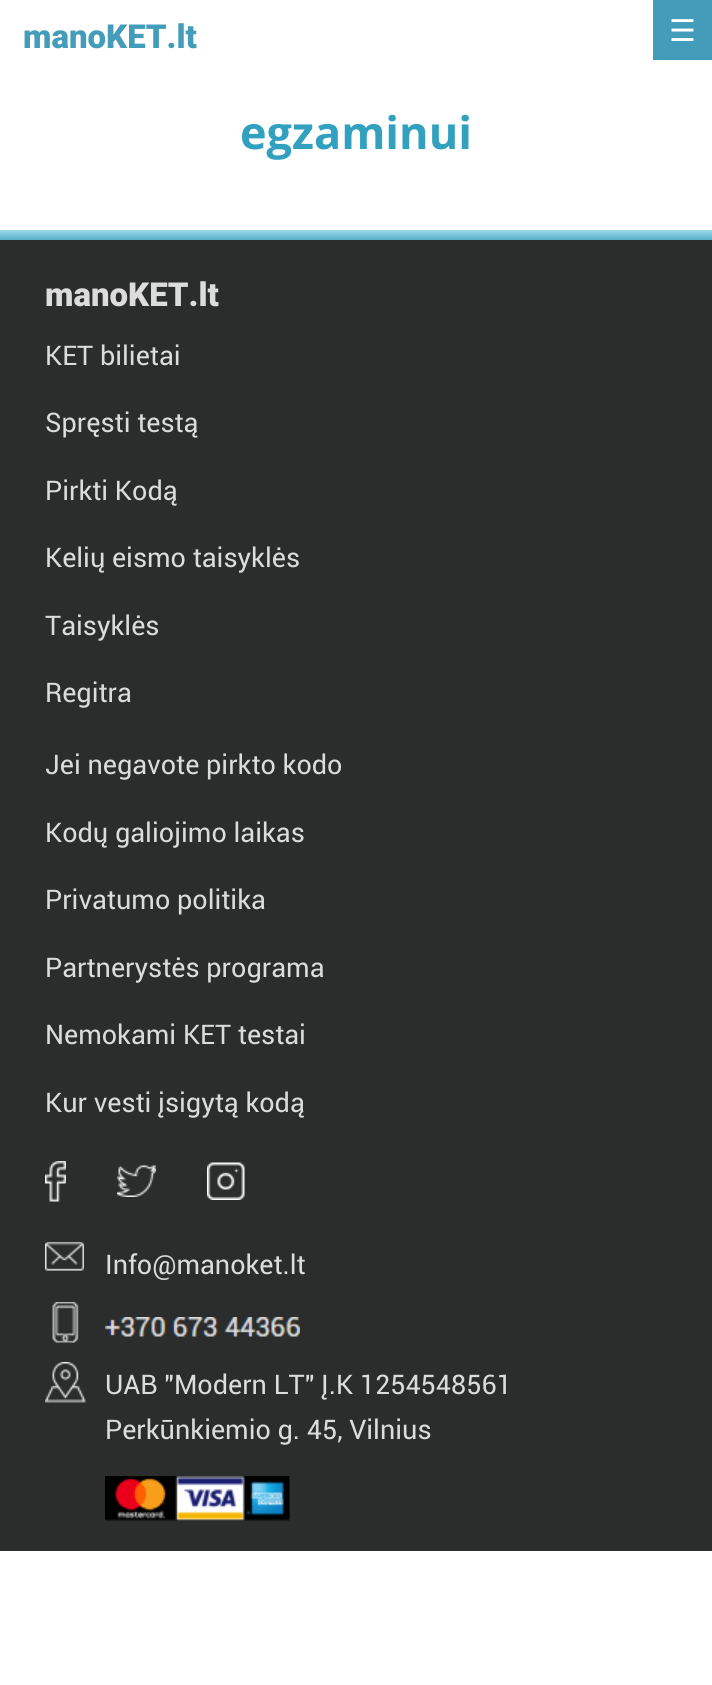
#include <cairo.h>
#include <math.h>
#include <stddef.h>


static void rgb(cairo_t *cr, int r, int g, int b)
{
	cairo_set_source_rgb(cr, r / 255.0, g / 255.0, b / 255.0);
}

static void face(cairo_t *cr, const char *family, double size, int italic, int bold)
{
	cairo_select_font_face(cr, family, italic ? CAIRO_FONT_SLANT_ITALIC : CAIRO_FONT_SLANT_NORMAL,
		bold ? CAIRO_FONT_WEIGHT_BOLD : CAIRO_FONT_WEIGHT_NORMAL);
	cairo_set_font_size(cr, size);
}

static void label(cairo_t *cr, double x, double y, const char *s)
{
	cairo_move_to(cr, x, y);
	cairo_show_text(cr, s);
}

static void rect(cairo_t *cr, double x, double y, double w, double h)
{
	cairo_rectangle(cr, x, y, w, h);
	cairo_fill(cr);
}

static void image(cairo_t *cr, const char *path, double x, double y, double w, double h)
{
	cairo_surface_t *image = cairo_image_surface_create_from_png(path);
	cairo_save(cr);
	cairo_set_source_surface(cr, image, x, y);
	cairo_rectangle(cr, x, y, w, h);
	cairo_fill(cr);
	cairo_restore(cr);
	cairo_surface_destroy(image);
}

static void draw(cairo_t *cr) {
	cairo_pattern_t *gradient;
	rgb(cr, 255, 255, 255);
	cairo_paint(cr);
	face(cr, "Roboto Black", 33, 0, 0);
	rgb(cr, 67, 156, 185);
	label(cr, 23, 48, "manoKET.lt");
	rect(cr, 653, 0, 59, 60);
	face(cr, "DejaVu Sans", 30, 0, 0);
	rgb(cr, 255, 255, 255);
	label(cr, 669, 41, "☰");
	face(cr, "Open Sans", 45, 0, 1);
	rgb(cr, 50, 160, 191);
	label(cr, 240, 149, "egzaminui");
	rgb(cr, 43, 44, 44);
	rect(cr, 0, 240, 712, 1311);
	gradient = cairo_pattern_create_linear(356, 229, 356, 240);
	cairo_pattern_add_color_stop_rgba(gradient, 0, 0.635, 0.878, 0.945, 1);
	cairo_pattern_add_color_stop_rgba(gradient, 1, 0.341, 0.682, 0.78, 1);
	cairo_set_source(cr, gradient);
	cairo_pattern_destroy(gradient);
	rect(cr, 0, 230, 712, 10);
	face(cr, "Roboto Black", 33, 0, 0);
	rgb(cr, 220, 220, 220);
	label(cr, 45, 306, "manoKET.lt");
	face(cr, "Roboto", 27, 0, 0);
	label(cr, 45, 365, "KET bilietai");
	label(cr, 45, 432, "Spręsti testą");
	label(cr, 45, 500, "Pirkti Kodą");
	label(cr, 45, 567, "Kelių eismo taisyklės");
	label(cr, 45, 635, "Taisyklės");
	label(cr, 45, 702, "Regitra");
	label(cr, 45, 774, "Jei negavote pirkto kodo");
	label(cr, 45, 842, "Kodų galiojimo laikas");
	label(cr, 45, 909, "Privatumo politika");
	label(cr, 45, 977, "Partnerystės programa");
	label(cr, 45, 1044, "Nemokami KET testai");
	label(cr, 45, 1112, "Kur vesti įsigytą kodą");
	image(cr, "image0.png", 45, 1161, 21, 41);
	image(cr, "image1.png", 117, 1165, 39, 32);
	image(cr, "image2.png", 207, 1162, 38, 38);
	image(cr, "image3.png", 45, 1242, 39, 29);
	label(cr, 105, 1274, "Info@manoket.lt");
	image(cr, "image4.png", 52, 1302, 27, 41);
	image(cr, "image5.png", 105, 1317, 195, 20);
	image(cr, "image6.png", 45, 1362, 41, 41);
	label(cr, 105, 1394, "UAB \"Modern LT\" Į.K 1254548561");
	label(cr, 105, 1439, "Perkūnkiemio g. 45, Vilnius");
	image(cr, "image7.png", 105, 1476, 185, 45);
}

int main(void) {
	cairo_surface_t *surface = cairo_image_surface_create(CAIRO_FORMAT_RGB24, 712, 1685);
	cairo_t *cr = cairo_create(surface);
	cairo_font_options_t *options = cairo_font_options_create();
	cairo_font_options_set_hint_metrics(options, CAIRO_HINT_METRICS_OFF);
	cairo_font_options_set_hint_style(options, CAIRO_HINT_STYLE_NONE);
	cairo_set_font_options(cr, options);
	cairo_set_miter_limit(cr, 4);
	draw(cr);
	cairo_surface_write_to_png(surface, "render.png");
	cairo_font_options_destroy(options);
	cairo_destroy(cr);
	cairo_surface_destroy(surface);
	return 0;
}
